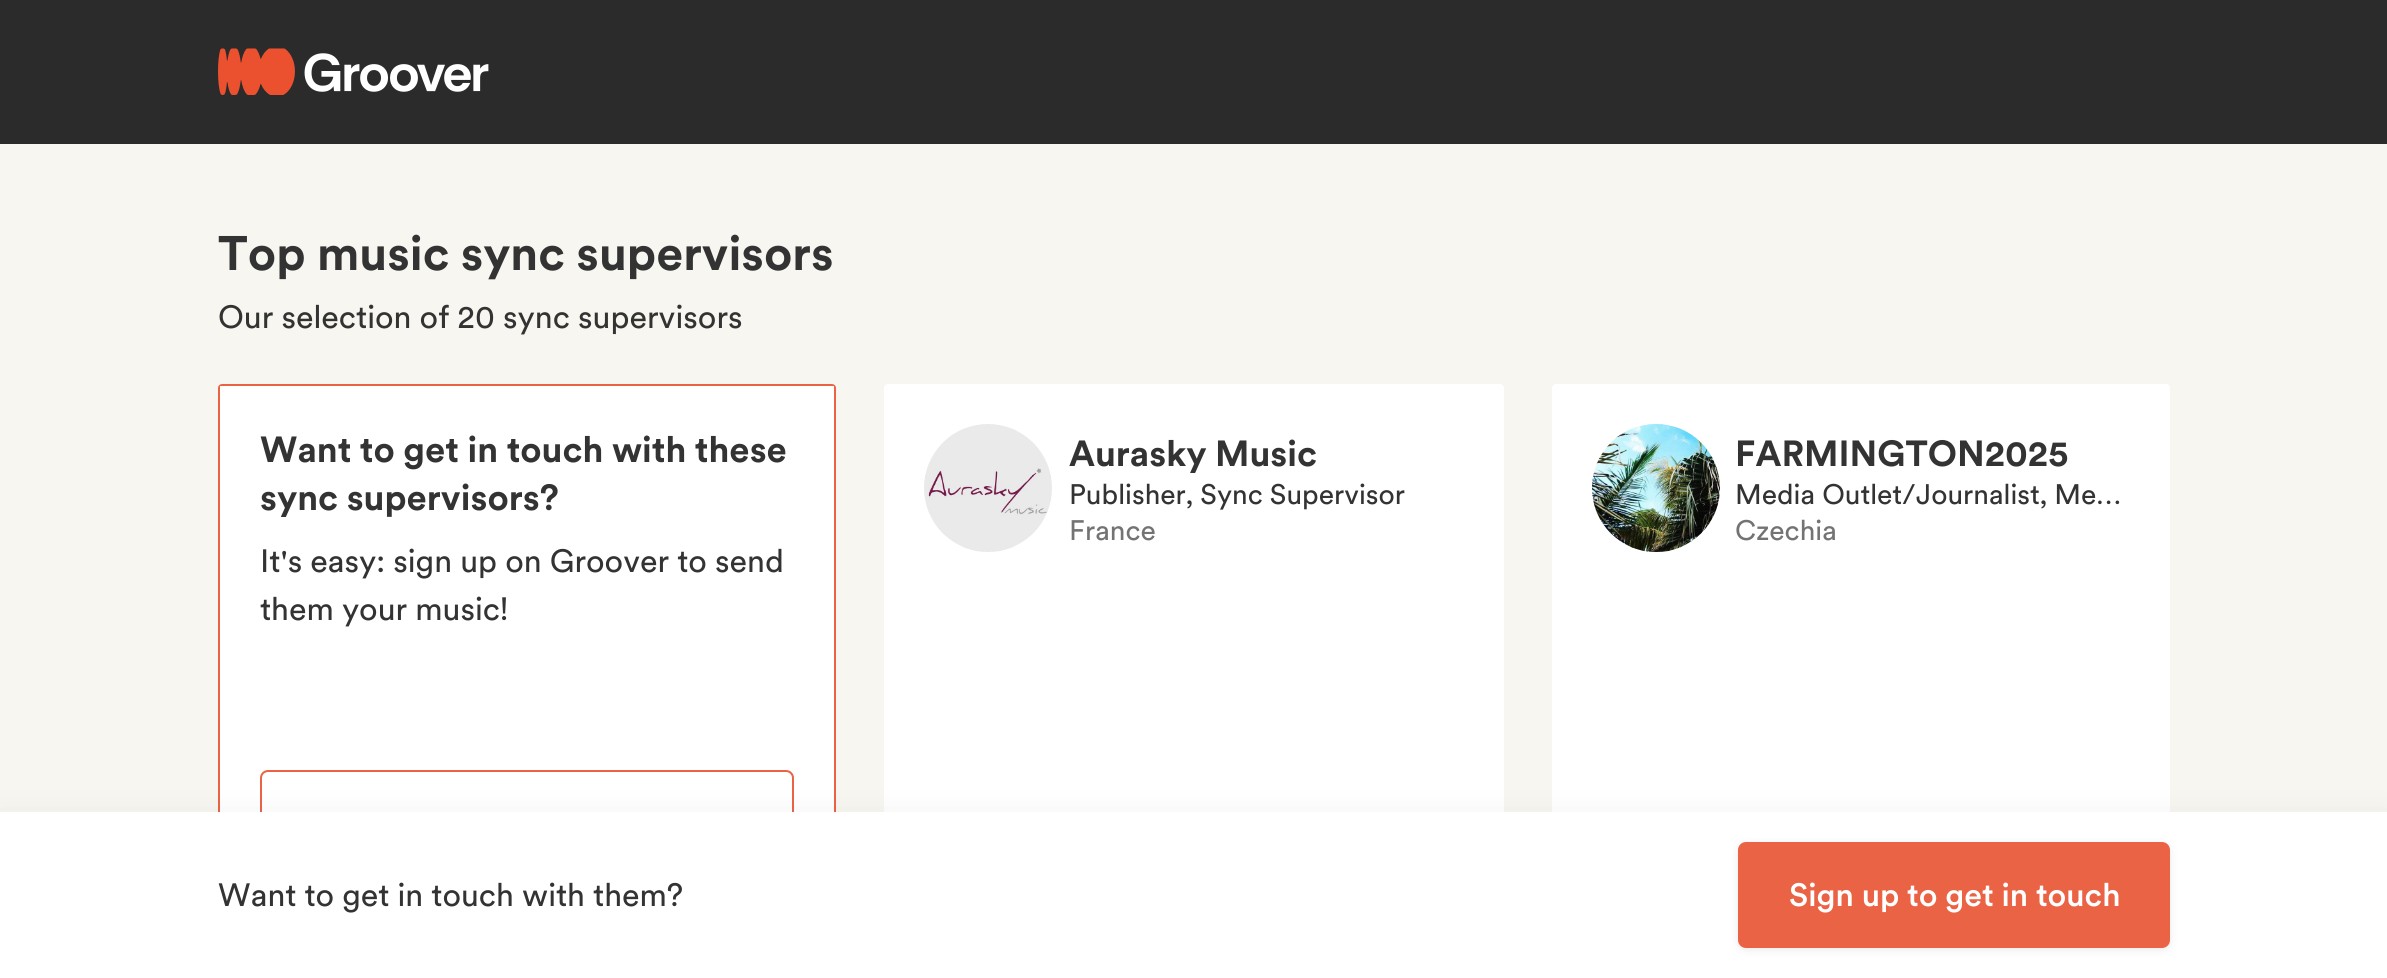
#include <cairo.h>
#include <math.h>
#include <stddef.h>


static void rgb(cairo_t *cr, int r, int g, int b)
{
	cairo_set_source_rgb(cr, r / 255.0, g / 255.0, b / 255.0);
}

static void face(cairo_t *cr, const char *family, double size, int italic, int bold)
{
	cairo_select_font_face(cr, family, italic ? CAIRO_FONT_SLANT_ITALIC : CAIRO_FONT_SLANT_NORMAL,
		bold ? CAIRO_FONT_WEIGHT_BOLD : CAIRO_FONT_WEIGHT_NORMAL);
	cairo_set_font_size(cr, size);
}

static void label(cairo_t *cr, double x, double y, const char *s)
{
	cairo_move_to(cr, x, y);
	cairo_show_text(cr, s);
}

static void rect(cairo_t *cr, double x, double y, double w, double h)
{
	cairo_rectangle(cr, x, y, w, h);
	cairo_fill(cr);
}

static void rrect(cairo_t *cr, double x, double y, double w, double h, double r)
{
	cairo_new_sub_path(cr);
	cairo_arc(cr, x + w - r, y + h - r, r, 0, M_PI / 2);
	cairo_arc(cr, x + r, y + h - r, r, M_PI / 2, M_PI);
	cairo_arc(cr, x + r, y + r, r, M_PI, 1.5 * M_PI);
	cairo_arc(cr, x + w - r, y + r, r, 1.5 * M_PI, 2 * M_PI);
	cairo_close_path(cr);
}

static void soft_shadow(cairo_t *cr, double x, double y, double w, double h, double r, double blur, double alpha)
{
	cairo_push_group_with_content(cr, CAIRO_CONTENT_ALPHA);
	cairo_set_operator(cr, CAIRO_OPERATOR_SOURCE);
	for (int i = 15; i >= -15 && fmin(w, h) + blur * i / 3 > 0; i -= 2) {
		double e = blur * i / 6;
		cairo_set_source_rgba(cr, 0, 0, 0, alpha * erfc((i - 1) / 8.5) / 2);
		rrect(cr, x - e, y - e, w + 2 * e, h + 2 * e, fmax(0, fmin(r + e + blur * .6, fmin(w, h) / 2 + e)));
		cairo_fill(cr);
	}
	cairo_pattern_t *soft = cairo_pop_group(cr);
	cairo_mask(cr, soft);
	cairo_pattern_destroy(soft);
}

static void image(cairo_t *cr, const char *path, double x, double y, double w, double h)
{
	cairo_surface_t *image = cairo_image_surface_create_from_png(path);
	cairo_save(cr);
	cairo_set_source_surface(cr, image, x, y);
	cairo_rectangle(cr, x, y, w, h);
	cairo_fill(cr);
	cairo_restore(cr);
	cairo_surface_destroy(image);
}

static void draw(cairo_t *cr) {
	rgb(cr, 247, 246, 240);
	cairo_paint(cr);
	rgb(cr, 43, 43, 43);
	rect(cr, 0, 0, 2387, 144);
	image(cr, "image0.png", 218, 48, 271, 47);
	face(cr, "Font", 48, 0, 1);
	rgb(cr, 51, 51, 51);
	label(cr, 218, 270, "Top music sync supervisors");
	face(cr, "Font", 32, 0, 0);
	label(cr, 218, 328, "Our selection of 20 sync supervisors");
	rrect(cr, 219, 385, 616, 510, 3);
	rgb(cr, 235, 99, 69);
	cairo_stroke(cr);
	rgb(cr, 254, 247, 245);
	rect(cr, 220, 386, 614, 4);
	rgb(cr, 255, 255, 255);
	rrect(cr, 220, 386, 614, 508, 4);
	cairo_fill(cr);
	face(cr, "Font", 36, 0, 1);
	rgb(cr, 51, 51, 51);
	label(cr, 260, 462, "Want to get in touch with these");
	label(cr, 260, 510, "sync supervisors?");
	face(cr, "Font", 32, 0, 0);
	label(cr, 260, 572, "It's easy: sign up on Groover to send");
	label(cr, 260, 620, "them your music!");
	rrect(cr, 261, 771, 532, 82, 7);
	rgb(cr, 235, 99, 69);
	cairo_stroke(cr);
	rgb(cr, 255, 255, 255);
	rrect(cr, 884, 384, 620, 512, 4);
	cairo_fill(cr);
	image(cr, "image1.png", 924, 424, 128, 128);
	face(cr, "Font", 36, 0, 1);
	rgb(cr, 51, 51, 51);
	label(cr, 1069, 466, "Aurasky Music");
	face(cr, "Font", 28, 0, 0);
	label(cr, 1069, 504, "Publisher, Sync Supervisor");
	rgb(cr, 115, 115, 115);
	label(cr, 1069, 540, "France");
	rgb(cr, 255, 255, 255);
	rrect(cr, 1552, 384, 618, 512, 4);
	cairo_fill(cr);
	image(cr, "image2.png", 1592, 424, 128, 128);
	face(cr, "Font", 36, 0, 1);
	rgb(cr, 51, 51, 51);
	label(cr, 1735, 466, "FARMINGTON2025");
	face(cr, "Font", 28, 0, 0);
	label(cr, 1735, 504, "Media Outlet/Journalist, Me…");
	rgb(cr, 115, 115, 115);
	label(cr, 1735, 540, "Czechia");
	rgb(cr, 51, 51, 51);
	soft_shadow(cr, 0, 820, 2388, 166, 0, 16, 0.1);
	rgb(cr, 255, 255, 255);
	rect(cr, 0, 812, 2387, 166);
	face(cr, "Font", 32, 0, 0);
	rgb(cr, 51, 51, 51);
	label(cr, 218, 906, "Want to get in touch with them?");
	rgb(cr, 51, 51, 51);
	soft_shadow(cr, 1738, 844, 432, 106, 8, 4, 0.1);
	rgb(cr, 235, 99, 69);
	rrect(cr, 1739, 843, 430, 104, 7);
	cairo_fill_preserve(cr);
	cairo_stroke(cr);
	face(cr, "Font Medium", 32, 0, 0);
	rgb(cr, 255, 255, 255);
	label(cr, 1789, 906, "Sign up to get in touch");
}

int main(void) {
	cairo_surface_t *surface = cairo_image_surface_create(CAIRO_FORMAT_RGB24, 2387, 978);
	cairo_t *cr = cairo_create(surface);
	cairo_font_options_t *options = cairo_font_options_create();
	cairo_font_options_set_hint_metrics(options, CAIRO_HINT_METRICS_OFF);
	cairo_font_options_set_hint_style(options, CAIRO_HINT_STYLE_NONE);
	cairo_set_font_options(cr, options);
	cairo_set_miter_limit(cr, 4);
	draw(cr);
	cairo_surface_write_to_png(surface, "render.png");
	cairo_font_options_destroy(options);
	cairo_destroy(cr);
	cairo_surface_destroy(surface);
	return 0;
}
